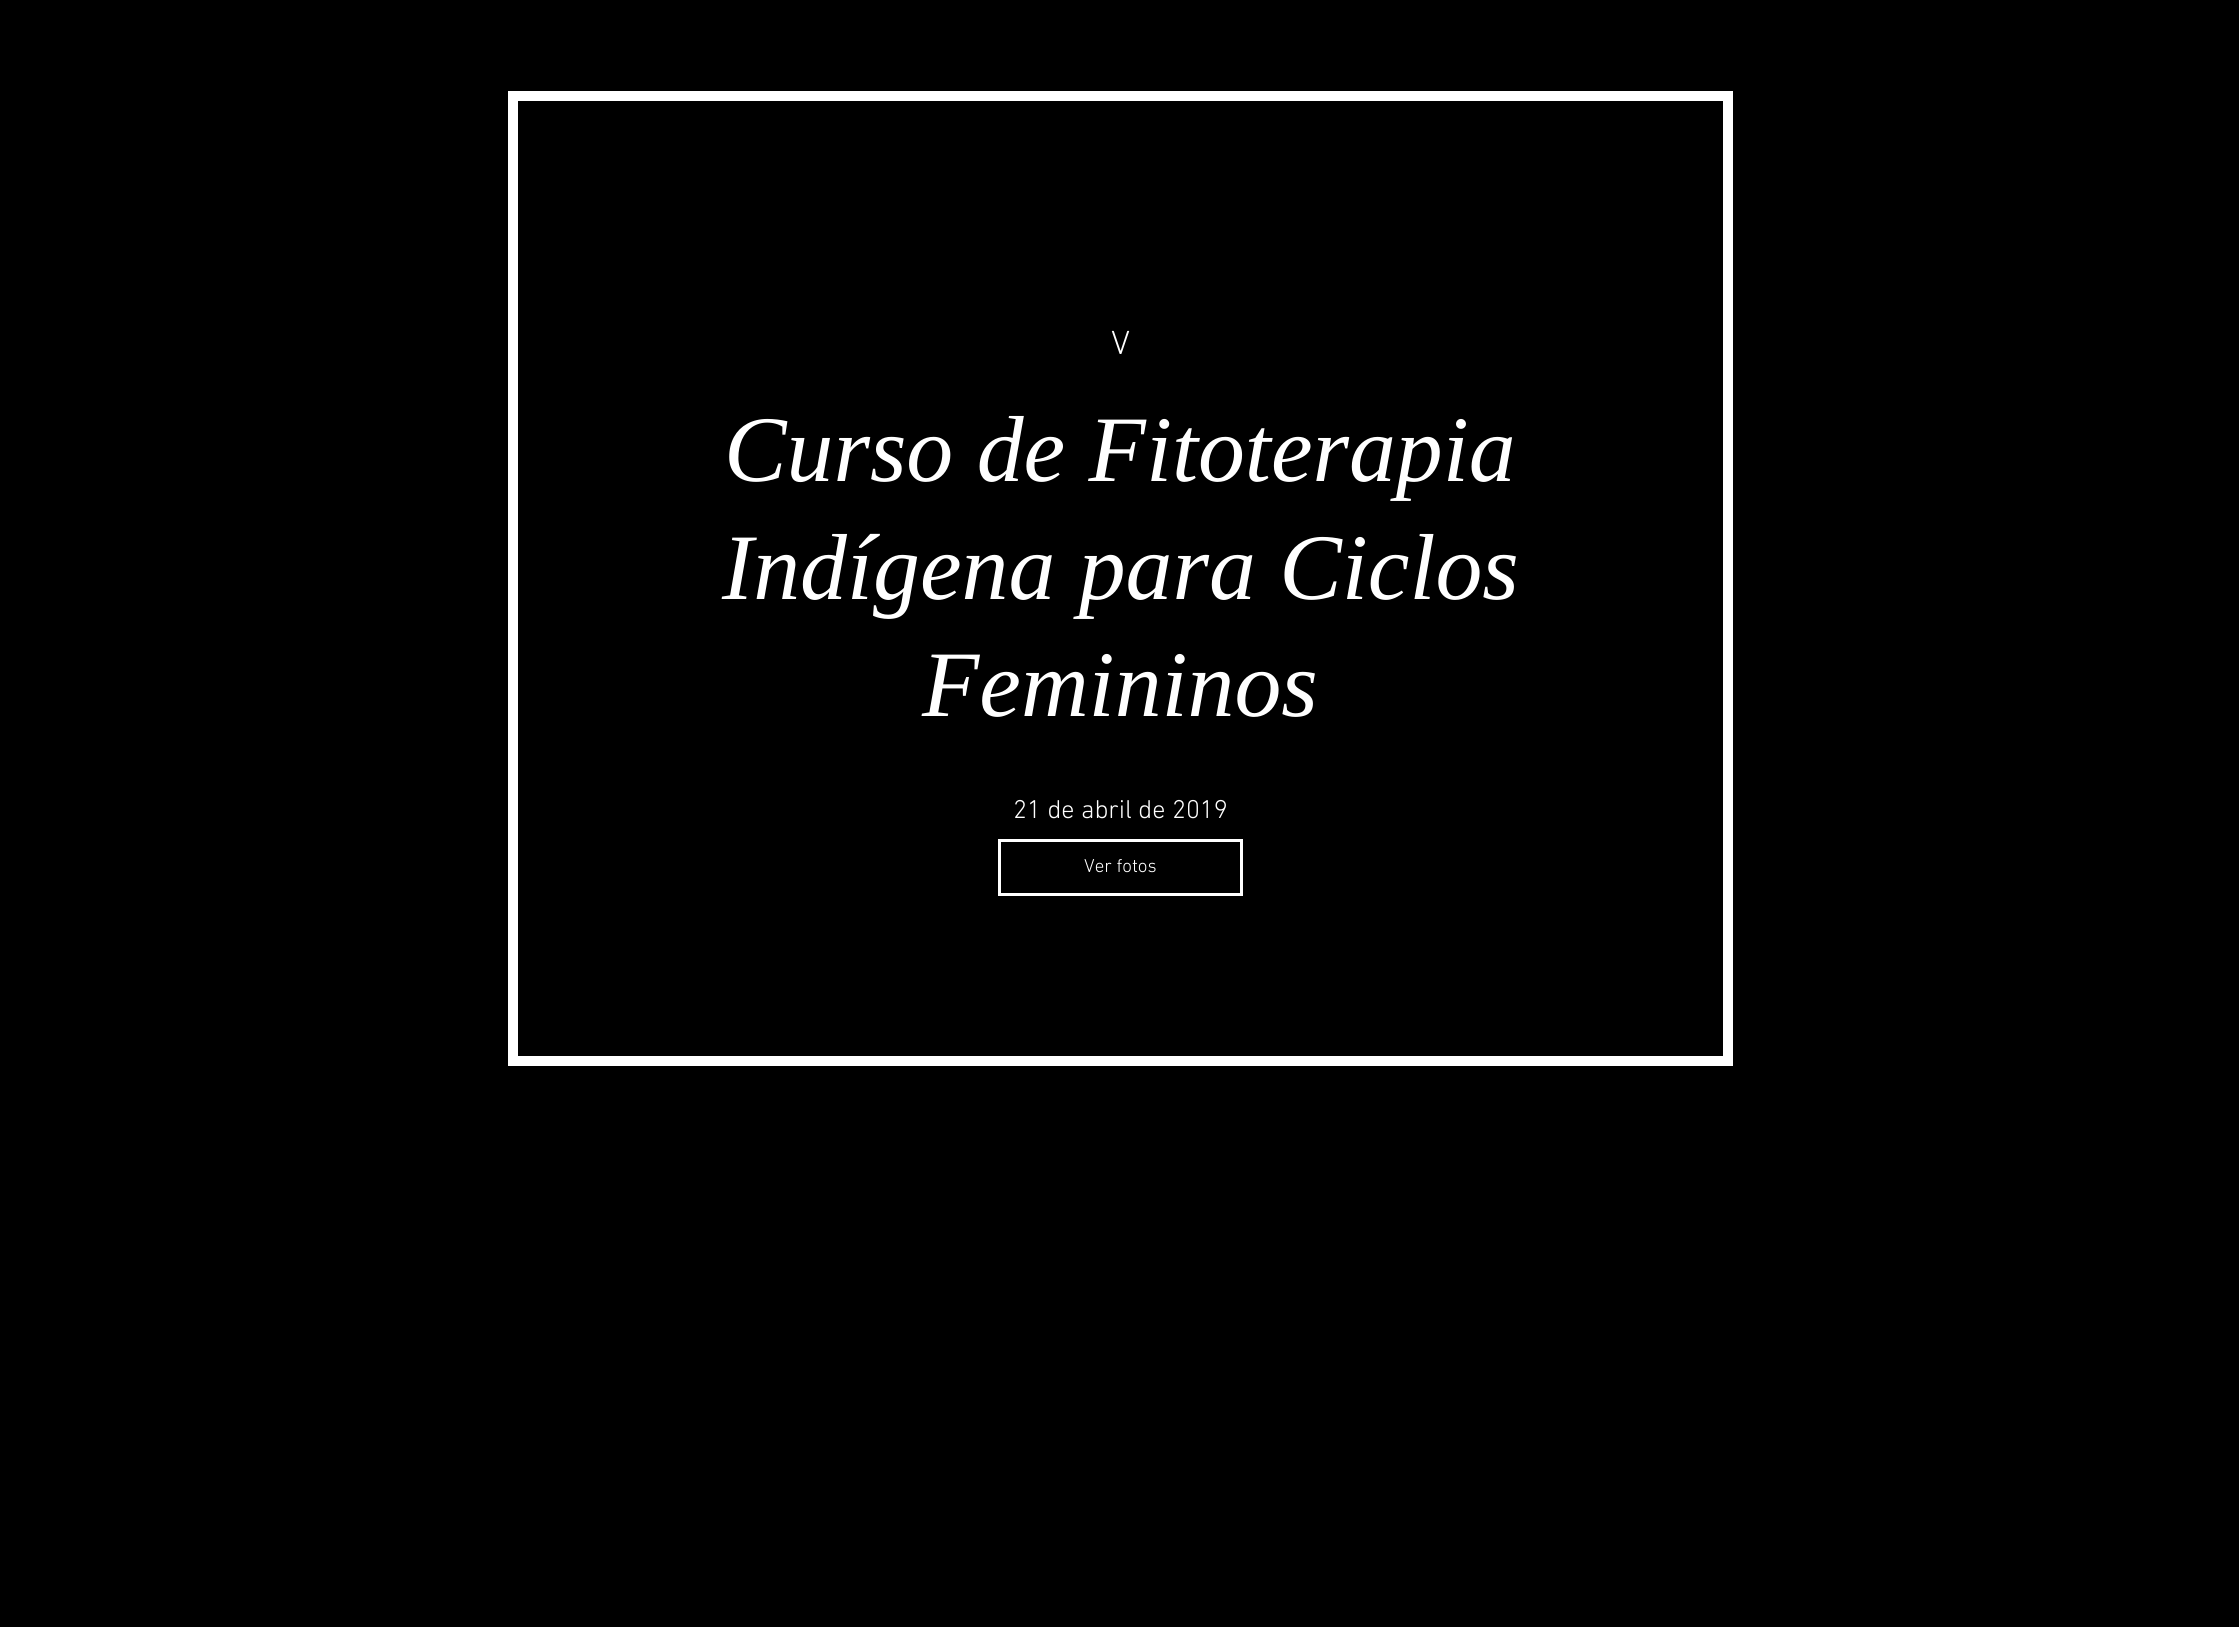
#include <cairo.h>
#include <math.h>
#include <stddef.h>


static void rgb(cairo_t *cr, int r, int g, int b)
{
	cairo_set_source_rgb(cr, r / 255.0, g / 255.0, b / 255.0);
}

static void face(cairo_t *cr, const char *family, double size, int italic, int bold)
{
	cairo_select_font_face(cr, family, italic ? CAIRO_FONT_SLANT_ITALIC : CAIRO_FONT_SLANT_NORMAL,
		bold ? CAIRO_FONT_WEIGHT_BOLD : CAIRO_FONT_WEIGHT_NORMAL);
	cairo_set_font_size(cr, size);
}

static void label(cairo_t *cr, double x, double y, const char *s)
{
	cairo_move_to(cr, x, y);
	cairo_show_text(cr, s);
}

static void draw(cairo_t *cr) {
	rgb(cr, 0, 0, 0);
	cairo_paint(cr);
	cairo_rectangle(cr, 513, 96, 1215, 965);
	rgb(cr, 255, 255, 255);
	cairo_set_line_width(cr, 10);
	cairo_stroke(cr);
	face(cr, "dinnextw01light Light", 34, 0, 0);
	label(cr, 1111, 354, "V");
	face(cr, "Liberation Serif", 93.75, 1, 0);
	label(cr, 724, 481, "Curso de Fitoterapia");
	label(cr, 722, 599, "Indígena para Ciclos");
	label(cr, 922, 716, "Femininos");
	face(cr, "dinnextw01light Light", 26.25, 0, 0);
	label(cr, 1013, 818, "21 de abril de 2019");
	cairo_rectangle(cr, 999.5, 840.5, 242, 54);
	cairo_set_line_width(cr, 3);
	cairo_stroke(cr);
	face(cr, "dinnextw01light Light", 19, 0, 0);
	label(cr, 1084, 872, "Ver fotos");
}

int main(void) {
	cairo_surface_t *surface = cairo_image_surface_create(CAIRO_FORMAT_RGB24, 2239, 1627);
	cairo_t *cr = cairo_create(surface);
	cairo_font_options_t *options = cairo_font_options_create();
	cairo_font_options_set_hint_metrics(options, CAIRO_HINT_METRICS_OFF);
	cairo_font_options_set_hint_style(options, CAIRO_HINT_STYLE_NONE);
	cairo_set_font_options(cr, options);
	cairo_set_miter_limit(cr, 4);
	draw(cr);
	cairo_surface_write_to_png(surface, "render.png");
	cairo_font_options_destroy(options);
	cairo_destroy(cr);
	cairo_surface_destroy(surface);
	return 0;
}
